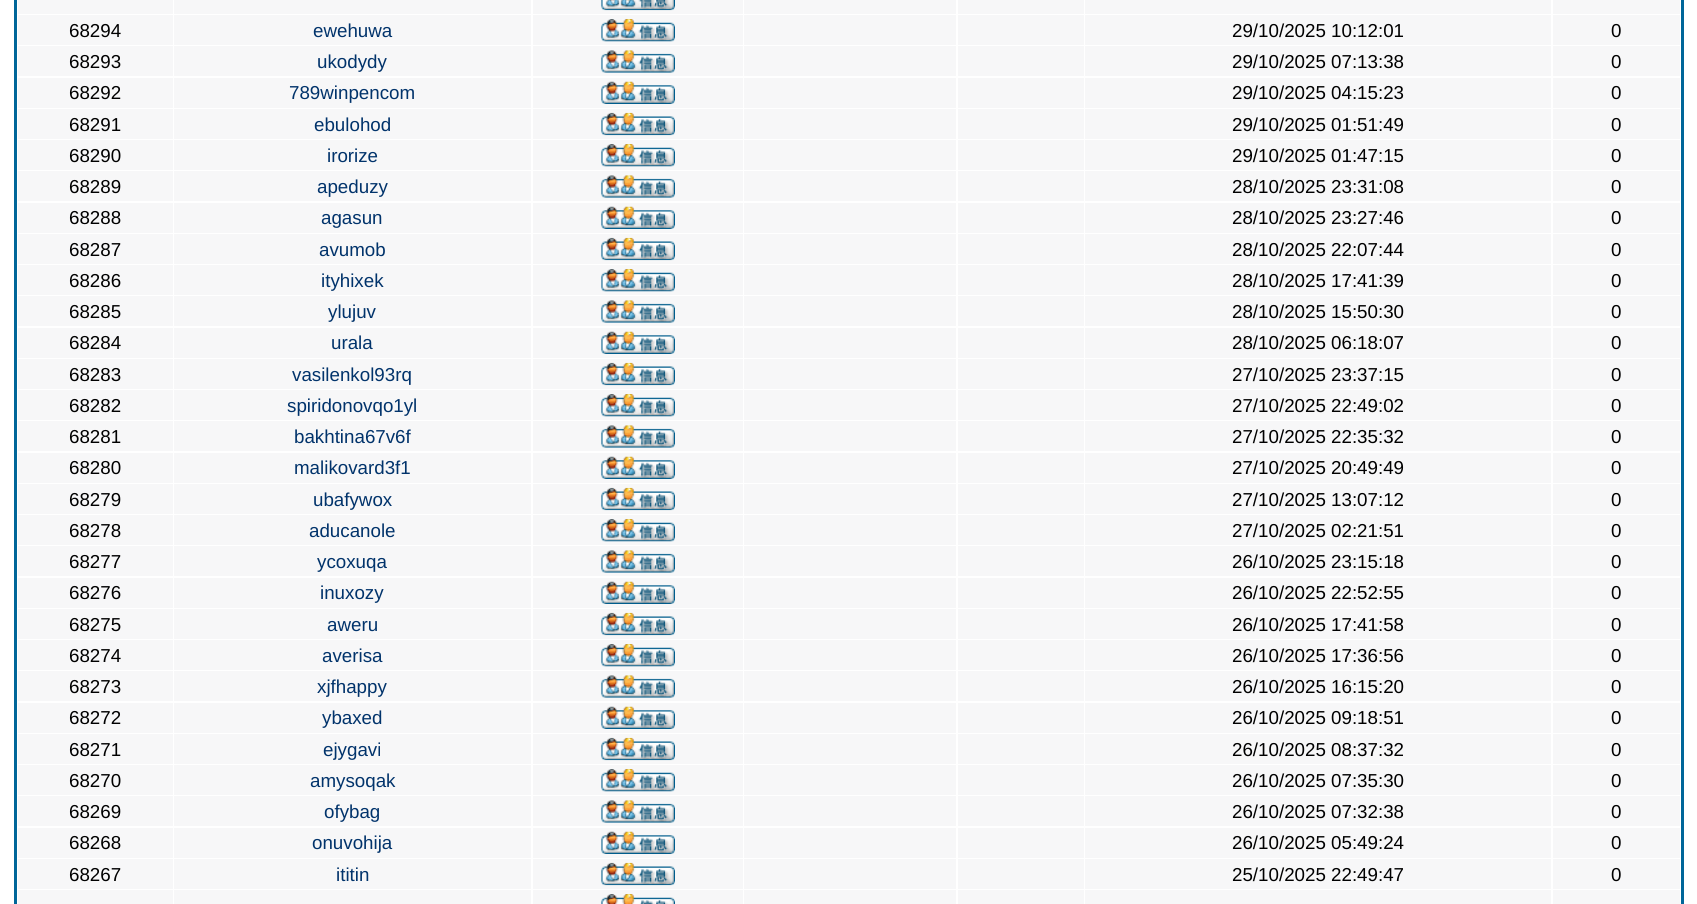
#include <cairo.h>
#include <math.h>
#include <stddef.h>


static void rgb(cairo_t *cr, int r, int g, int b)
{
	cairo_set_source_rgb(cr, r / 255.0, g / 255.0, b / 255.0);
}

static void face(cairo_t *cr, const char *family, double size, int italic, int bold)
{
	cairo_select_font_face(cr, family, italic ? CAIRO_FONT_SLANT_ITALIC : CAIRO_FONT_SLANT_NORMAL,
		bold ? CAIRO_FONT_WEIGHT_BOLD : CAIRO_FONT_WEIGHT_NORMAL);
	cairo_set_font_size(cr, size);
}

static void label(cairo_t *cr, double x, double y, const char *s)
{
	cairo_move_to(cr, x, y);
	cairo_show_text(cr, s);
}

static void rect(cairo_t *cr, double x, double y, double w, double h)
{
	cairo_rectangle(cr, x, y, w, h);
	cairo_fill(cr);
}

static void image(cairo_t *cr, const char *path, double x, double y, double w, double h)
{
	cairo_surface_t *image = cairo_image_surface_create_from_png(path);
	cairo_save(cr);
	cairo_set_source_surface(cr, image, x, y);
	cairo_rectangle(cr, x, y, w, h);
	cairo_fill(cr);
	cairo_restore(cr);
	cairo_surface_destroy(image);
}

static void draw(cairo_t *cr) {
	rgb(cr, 255, 255, 255);
	cairo_paint(cr);
	cairo_rectangle(cr, 15.5, -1.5, 1667, 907);
	rgb(cr, 0, 102, 153);
	cairo_set_line_width(cr, 3);
	cairo_stroke(cr);
	rgb(cr, 247, 247, 248);
	rect(cr, 18, 0, 155, 14);
	rect(cr, 174, 0, 357, 14);
	rect(cr, 533, 0, 210, 14);
	image(cr, "image0.png", 601, 0, 74, 11);
	rect(cr, 744, 0, 212, 14);
	rect(cr, 958, 0, 126, 14);
	rect(cr, 1085, 0, 466, 14);
	rect(cr, 1553, 0, 127, 14);
	rect(cr, 18, 15, 155, 30);
	face(cr, "Liberation Sans", 18.75, 0, 0);
	rgb(cr, 0, 0, 0);
	label(cr, 69, 37, "68294");
	rgb(cr, 247, 247, 248);
	rect(cr, 174, 15, 357, 30);
	rgb(cr, 1, 51, 107);
	label(cr, 313, 37, "ewehuwa");
	rgb(cr, 247, 247, 248);
	rect(cr, 533, 15, 210, 30);
	image(cr, "image1.png", 601, 19, 74, 23);
	rect(cr, 744, 15, 212, 30);
	rect(cr, 958, 15, 126, 30);
	rect(cr, 1085, 15, 466, 30);
	rgb(cr, 0, 0, 0);
	label(cr, 1232, 37, "29/10/2025 10:12:01");
	rgb(cr, 247, 247, 248);
	rect(cr, 1553, 15, 127, 30);
	rgb(cr, 0, 0, 0);
	label(cr, 1611, 37, "0");
	rgb(cr, 247, 247, 248);
	rect(cr, 18, 46, 155, 30);
	rgb(cr, 0, 0, 0);
	label(cr, 69, 68, "68293");
	rgb(cr, 247, 247, 248);
	rect(cr, 174, 46, 357, 30);
	rgb(cr, 1, 51, 107);
	label(cr, 317, 68, "ukodydy");
	rgb(cr, 247, 247, 248);
	rect(cr, 533, 46, 210, 30);
	image(cr, "image2.png", 601, 50, 74, 23);
	rect(cr, 744, 46, 212, 30);
	rect(cr, 958, 46, 126, 30);
	rect(cr, 1085, 46, 466, 30);
	rgb(cr, 0, 0, 0);
	label(cr, 1232, 68, "29/10/2025 07:13:38");
	rgb(cr, 247, 247, 248);
	rect(cr, 1553, 46, 127, 30);
	rgb(cr, 0, 0, 0);
	label(cr, 1611, 68, "0");
	rgb(cr, 247, 247, 248);
	rect(cr, 18, 78, 155, 30);
	rgb(cr, 0, 0, 0);
	label(cr, 69, 99, "68292");
	rgb(cr, 247, 247, 248);
	rect(cr, 174, 78, 357, 30);
	rgb(cr, 1, 51, 107);
	label(cr, 289, 99, "789winpencom");
	rgb(cr, 247, 247, 248);
	rect(cr, 533, 78, 210, 30);
	image(cr, "image3.png", 601, 81, 74, 23);
	rect(cr, 744, 78, 212, 30);
	rect(cr, 958, 78, 126, 30);
	rect(cr, 1085, 78, 466, 30);
	rgb(cr, 0, 0, 0);
	label(cr, 1232, 99, "29/10/2025 04:15:23");
	rgb(cr, 247, 247, 248);
	rect(cr, 1553, 78, 127, 30);
	rgb(cr, 0, 0, 0);
	label(cr, 1611, 99, "0");
	rgb(cr, 247, 247, 248);
	rect(cr, 18, 109, 155, 30);
	rgb(cr, 0, 0, 0);
	label(cr, 69, 131, "68291");
	rgb(cr, 247, 247, 248);
	rect(cr, 174, 109, 357, 30);
	rgb(cr, 1, 51, 107);
	label(cr, 314, 131, "ebulohod");
	rgb(cr, 247, 247, 248);
	rect(cr, 533, 109, 210, 30);
	image(cr, "image4.png", 601, 112, 74, 24);
	rect(cr, 744, 109, 212, 30);
	rect(cr, 958, 109, 126, 30);
	rect(cr, 1085, 109, 466, 30);
	rgb(cr, 0, 0, 0);
	label(cr, 1232, 131, "29/10/2025 01:51:49");
	rgb(cr, 247, 247, 248);
	rect(cr, 1553, 109, 127, 30);
	rgb(cr, 0, 0, 0);
	label(cr, 1611, 131, "0");
	rgb(cr, 247, 247, 248);
	rect(cr, 18, 140, 155, 30);
	rgb(cr, 0, 0, 0);
	label(cr, 69, 162, "68290");
	rgb(cr, 247, 247, 248);
	rect(cr, 174, 140, 357, 30);
	rgb(cr, 1, 51, 107);
	label(cr, 327, 162, "irorize");
	rgb(cr, 247, 247, 248);
	rect(cr, 533, 140, 210, 30);
	image(cr, "image1.png", 601, 144, 74, 23);
	rect(cr, 744, 140, 212, 30);
	rect(cr, 958, 140, 126, 30);
	rect(cr, 1085, 140, 466, 30);
	rgb(cr, 0, 0, 0);
	label(cr, 1232, 162, "29/10/2025 01:47:15");
	rgb(cr, 247, 247, 248);
	rect(cr, 1553, 140, 127, 30);
	rgb(cr, 0, 0, 0);
	label(cr, 1611, 162, "0");
	rgb(cr, 247, 247, 248);
	rect(cr, 18, 171, 155, 30);
	rgb(cr, 0, 0, 0);
	label(cr, 69, 193, "68289");
	rgb(cr, 247, 247, 248);
	rect(cr, 174, 171, 357, 30);
	rgb(cr, 1, 51, 107);
	label(cr, 317, 193, "apeduzy");
	rgb(cr, 247, 247, 248);
	rect(cr, 533, 171, 210, 30);
	image(cr, "image2.png", 601, 175, 74, 23);
	rect(cr, 744, 171, 212, 30);
	rect(cr, 958, 171, 126, 30);
	rect(cr, 1085, 171, 466, 30);
	rgb(cr, 0, 0, 0);
	label(cr, 1232, 193, "28/10/2025 23:31:08");
	rgb(cr, 247, 247, 248);
	rect(cr, 1553, 171, 127, 30);
	rgb(cr, 0, 0, 0);
	label(cr, 1611, 193, "0");
	rgb(cr, 247, 247, 248);
	rect(cr, 18, 203, 155, 30);
	rgb(cr, 0, 0, 0);
	label(cr, 69, 224, "68288");
	rgb(cr, 247, 247, 248);
	rect(cr, 174, 203, 357, 30);
	rgb(cr, 1, 51, 107);
	label(cr, 321, 224, "agasun");
	rgb(cr, 247, 247, 248);
	rect(cr, 533, 203, 210, 30);
	image(cr, "image3.png", 601, 206, 74, 23);
	rect(cr, 744, 203, 212, 30);
	rect(cr, 958, 203, 126, 30);
	rect(cr, 1085, 203, 466, 30);
	rgb(cr, 0, 0, 0);
	label(cr, 1232, 224, "28/10/2025 23:27:46");
	rgb(cr, 247, 247, 248);
	rect(cr, 1553, 203, 127, 30);
	rgb(cr, 0, 0, 0);
	label(cr, 1611, 224, "0");
	rgb(cr, 247, 247, 248);
	rect(cr, 18, 234, 155, 30);
	rgb(cr, 0, 0, 0);
	label(cr, 69, 256, "68287");
	rgb(cr, 247, 247, 248);
	rect(cr, 174, 234, 357, 30);
	rgb(cr, 1, 51, 107);
	label(cr, 319, 256, "avumob");
	rgb(cr, 247, 247, 248);
	rect(cr, 533, 234, 210, 30);
	image(cr, "image4.png", 601, 237, 74, 24);
	rect(cr, 744, 234, 212, 30);
	rect(cr, 958, 234, 126, 30);
	rect(cr, 1085, 234, 466, 30);
	rgb(cr, 0, 0, 0);
	label(cr, 1232, 256, "28/10/2025 22:07:44");
	rgb(cr, 247, 247, 248);
	rect(cr, 1553, 234, 127, 30);
	rgb(cr, 0, 0, 0);
	label(cr, 1611, 256, "0");
	rgb(cr, 247, 247, 248);
	rect(cr, 18, 265, 155, 30);
	rgb(cr, 0, 0, 0);
	label(cr, 69, 287, "68286");
	rgb(cr, 247, 247, 248);
	rect(cr, 174, 265, 357, 30);
	rgb(cr, 1, 51, 107);
	label(cr, 321, 287, "ityhixek");
	rgb(cr, 247, 247, 248);
	rect(cr, 533, 265, 210, 30);
	image(cr, "image1.png", 601, 269, 74, 23);
	rect(cr, 744, 265, 212, 30);
	rect(cr, 958, 265, 126, 30);
	rect(cr, 1085, 265, 466, 30);
	rgb(cr, 0, 0, 0);
	label(cr, 1232, 287, "28/10/2025 17:41:39");
	rgb(cr, 247, 247, 248);
	rect(cr, 1553, 265, 127, 30);
	rgb(cr, 0, 0, 0);
	label(cr, 1611, 287, "0");
	rgb(cr, 247, 247, 248);
	rect(cr, 18, 296, 155, 30);
	rgb(cr, 0, 0, 0);
	label(cr, 69, 318, "68285");
	rgb(cr, 247, 247, 248);
	rect(cr, 174, 296, 357, 30);
	rgb(cr, 1, 51, 107);
	label(cr, 328, 318, "ylujuv");
	rgb(cr, 247, 247, 248);
	rect(cr, 533, 296, 210, 30);
	image(cr, "image2.png", 601, 300, 74, 23);
	rect(cr, 744, 296, 212, 30);
	rect(cr, 958, 296, 126, 30);
	rect(cr, 1085, 296, 466, 30);
	rgb(cr, 0, 0, 0);
	label(cr, 1232, 318, "28/10/2025 15:50:30");
	rgb(cr, 247, 247, 248);
	rect(cr, 1553, 296, 127, 30);
	rgb(cr, 0, 0, 0);
	label(cr, 1611, 318, "0");
	rgb(cr, 247, 247, 248);
	rect(cr, 18, 328, 155, 30);
	rgb(cr, 0, 0, 0);
	label(cr, 69, 349, "68284");
	rgb(cr, 247, 247, 248);
	rect(cr, 174, 328, 357, 30);
	rgb(cr, 1, 51, 107);
	label(cr, 331, 349, "urala");
	rgb(cr, 247, 247, 248);
	rect(cr, 533, 328, 210, 30);
	image(cr, "image3.png", 601, 331, 74, 23);
	rect(cr, 744, 328, 212, 30);
	rect(cr, 958, 328, 126, 30);
	rect(cr, 1085, 328, 466, 30);
	rgb(cr, 0, 0, 0);
	label(cr, 1232, 349, "28/10/2025 06:18:07");
	rgb(cr, 247, 247, 248);
	rect(cr, 1553, 328, 127, 30);
	rgb(cr, 0, 0, 0);
	label(cr, 1611, 349, "0");
	rgb(cr, 247, 247, 248);
	rect(cr, 18, 359, 155, 30);
	rgb(cr, 0, 0, 0);
	label(cr, 69, 381, "68283");
	rgb(cr, 247, 247, 248);
	rect(cr, 174, 359, 357, 30);
	rgb(cr, 1, 51, 107);
	label(cr, 292, 381, "vasilenkol93rq");
	rgb(cr, 247, 247, 248);
	rect(cr, 533, 359, 210, 30);
	image(cr, "image4.png", 601, 362, 74, 24);
	rect(cr, 744, 359, 212, 30);
	rect(cr, 958, 359, 126, 30);
	rect(cr, 1085, 359, 466, 30);
	rgb(cr, 0, 0, 0);
	label(cr, 1232, 381, "27/10/2025 23:37:15");
	rgb(cr, 247, 247, 248);
	rect(cr, 1553, 359, 127, 30);
	rgb(cr, 0, 0, 0);
	label(cr, 1611, 381, "0");
	rgb(cr, 247, 247, 248);
	rect(cr, 18, 390, 155, 30);
	rgb(cr, 0, 0, 0);
	label(cr, 69, 412, "68282");
	rgb(cr, 247, 247, 248);
	rect(cr, 174, 390, 357, 30);
	rgb(cr, 1, 51, 107);
	label(cr, 287, 412, "spiridonovqo1yl");
	rgb(cr, 247, 247, 248);
	rect(cr, 533, 390, 210, 30);
	image(cr, "image1.png", 601, 394, 74, 23);
	rect(cr, 744, 390, 212, 30);
	rect(cr, 958, 390, 126, 30);
	rect(cr, 1085, 390, 466, 30);
	rgb(cr, 0, 0, 0);
	label(cr, 1232, 412, "27/10/2025 22:49:02");
	rgb(cr, 247, 247, 248);
	rect(cr, 1553, 390, 127, 30);
	rgb(cr, 0, 0, 0);
	label(cr, 1611, 412, "0");
	rgb(cr, 247, 247, 248);
	rect(cr, 18, 421, 155, 30);
	rgb(cr, 0, 0, 0);
	label(cr, 69, 443, "68281");
	rgb(cr, 247, 247, 248);
	rect(cr, 174, 421, 357, 30);
	rgb(cr, 1, 51, 107);
	label(cr, 294, 443, "bakhtina67v6f");
	rgb(cr, 247, 247, 248);
	rect(cr, 533, 421, 210, 30);
	image(cr, "image2.png", 601, 425, 74, 23);
	rect(cr, 744, 421, 212, 30);
	rect(cr, 958, 421, 126, 30);
	rect(cr, 1085, 421, 466, 30);
	rgb(cr, 0, 0, 0);
	label(cr, 1232, 443, "27/10/2025 22:35:32");
	rgb(cr, 247, 247, 248);
	rect(cr, 1553, 421, 127, 30);
	rgb(cr, 0, 0, 0);
	label(cr, 1611, 443, "0");
	rgb(cr, 247, 247, 248);
	rect(cr, 18, 453, 155, 30);
	rgb(cr, 0, 0, 0);
	label(cr, 69, 474, "68280");
	rgb(cr, 247, 247, 248);
	rect(cr, 174, 453, 357, 30);
	rgb(cr, 1, 51, 107);
	label(cr, 294, 474, "malikovard3f1");
	rgb(cr, 247, 247, 248);
	rect(cr, 533, 453, 210, 30);
	image(cr, "image3.png", 601, 456, 74, 23);
	rect(cr, 744, 453, 212, 30);
	rect(cr, 958, 453, 126, 30);
	rect(cr, 1085, 453, 466, 30);
	rgb(cr, 0, 0, 0);
	label(cr, 1232, 474, "27/10/2025 20:49:49");
	rgb(cr, 247, 247, 248);
	rect(cr, 1553, 453, 127, 30);
	rgb(cr, 0, 0, 0);
	label(cr, 1611, 474, "0");
	rgb(cr, 247, 247, 248);
	rect(cr, 18, 484, 155, 30);
	rgb(cr, 0, 0, 0);
	label(cr, 69, 506, "68279");
	rgb(cr, 247, 247, 248);
	rect(cr, 174, 484, 357, 30);
	rgb(cr, 1, 51, 107);
	label(cr, 313, 506, "ubafywox");
	rgb(cr, 247, 247, 248);
	rect(cr, 533, 484, 210, 30);
	image(cr, "image4.png", 601, 487, 74, 24);
	rect(cr, 744, 484, 212, 30);
	rect(cr, 958, 484, 126, 30);
	rect(cr, 1085, 484, 466, 30);
	rgb(cr, 0, 0, 0);
	label(cr, 1232, 506, "27/10/2025 13:07:12");
	rgb(cr, 247, 247, 248);
	rect(cr, 1553, 484, 127, 30);
	rgb(cr, 0, 0, 0);
	label(cr, 1611, 506, "0");
	rgb(cr, 247, 247, 248);
	rect(cr, 18, 515, 155, 30);
	rgb(cr, 0, 0, 0);
	label(cr, 69, 537, "68278");
	rgb(cr, 247, 247, 248);
	rect(cr, 174, 515, 357, 30);
	rgb(cr, 1, 51, 107);
	label(cr, 309, 537, "aducanole");
	rgb(cr, 247, 247, 248);
	rect(cr, 533, 515, 210, 30);
	image(cr, "image5.png", 601, 519, 74, 23);
	rect(cr, 744, 515, 212, 30);
	rect(cr, 958, 515, 126, 30);
	rect(cr, 1085, 515, 466, 30);
	rgb(cr, 0, 0, 0);
	label(cr, 1232, 537, "27/10/2025 02:21:51");
	rgb(cr, 247, 247, 248);
	rect(cr, 1553, 515, 127, 30);
	rgb(cr, 0, 0, 0);
	label(cr, 1611, 537, "0");
	rgb(cr, 247, 247, 248);
	rect(cr, 18, 546, 155, 30);
	rgb(cr, 0, 0, 0);
	label(cr, 69, 568, "68277");
	rgb(cr, 247, 247, 248);
	rect(cr, 174, 546, 357, 30);
	rgb(cr, 1, 51, 107);
	label(cr, 317, 568, "ycoxuqa");
	rgb(cr, 247, 247, 248);
	rect(cr, 533, 546, 210, 30);
	image(cr, "image2.png", 601, 550, 74, 23);
	rect(cr, 744, 546, 212, 30);
	rect(cr, 958, 546, 126, 30);
	rect(cr, 1085, 546, 466, 30);
	rgb(cr, 0, 0, 0);
	label(cr, 1232, 568, "26/10/2025 23:15:18");
	rgb(cr, 247, 247, 248);
	rect(cr, 1553, 546, 127, 30);
	rgb(cr, 0, 0, 0);
	label(cr, 1611, 568, "0");
	rgb(cr, 247, 247, 248);
	rect(cr, 18, 578, 155, 30);
	rgb(cr, 0, 0, 0);
	label(cr, 69, 599, "68276");
	rgb(cr, 247, 247, 248);
	rect(cr, 174, 578, 357, 30);
	rgb(cr, 1, 51, 107);
	label(cr, 320, 599, "inuxozy");
	rgb(cr, 247, 247, 248);
	rect(cr, 533, 578, 210, 30);
	image(cr, "image3.png", 601, 581, 74, 23);
	rect(cr, 744, 578, 212, 30);
	rect(cr, 958, 578, 126, 30);
	rect(cr, 1085, 578, 466, 30);
	rgb(cr, 0, 0, 0);
	label(cr, 1232, 599, "26/10/2025 22:52:55");
	rgb(cr, 247, 247, 248);
	rect(cr, 1553, 578, 127, 30);
	rgb(cr, 0, 0, 0);
	label(cr, 1611, 599, "0");
	rgb(cr, 247, 247, 248);
	rect(cr, 18, 609, 155, 30);
	rgb(cr, 0, 0, 0);
	label(cr, 69, 631, "68275");
	rgb(cr, 247, 247, 248);
	rect(cr, 174, 609, 357, 30);
	rgb(cr, 1, 51, 107);
	label(cr, 327, 631, "aweru");
	rgb(cr, 247, 247, 248);
	rect(cr, 533, 609, 210, 30);
	image(cr, "image4.png", 601, 612, 74, 24);
	rect(cr, 744, 609, 212, 30);
	rect(cr, 958, 609, 126, 30);
	rect(cr, 1085, 609, 466, 30);
	rgb(cr, 0, 0, 0);
	label(cr, 1232, 631, "26/10/2025 17:41:58");
	rgb(cr, 247, 247, 248);
	rect(cr, 1553, 609, 127, 30);
	rgb(cr, 0, 0, 0);
	label(cr, 1611, 631, "0");
	rgb(cr, 247, 247, 248);
	rect(cr, 18, 640, 155, 30);
	rgb(cr, 0, 0, 0);
	label(cr, 69, 662, "68274");
	rgb(cr, 247, 247, 248);
	rect(cr, 174, 640, 357, 30);
	rgb(cr, 1, 51, 107);
	label(cr, 322, 662, "averisa");
	rgb(cr, 247, 247, 248);
	rect(cr, 533, 640, 210, 30);
	image(cr, "image1.png", 601, 644, 74, 23);
	rect(cr, 744, 640, 212, 30);
	rect(cr, 958, 640, 126, 30);
	rect(cr, 1085, 640, 466, 30);
	rgb(cr, 0, 0, 0);
	label(cr, 1232, 662, "26/10/2025 17:36:56");
	rgb(cr, 247, 247, 248);
	rect(cr, 1553, 640, 127, 30);
	rgb(cr, 0, 0, 0);
	label(cr, 1611, 662, "0");
	rgb(cr, 247, 247, 248);
	rect(cr, 18, 671, 155, 30);
	rgb(cr, 0, 0, 0);
	label(cr, 69, 693, "68273");
	rgb(cr, 247, 247, 248);
	rect(cr, 174, 671, 357, 30);
	rgb(cr, 1, 51, 107);
	label(cr, 317, 693, "xjfhappy");
	rgb(cr, 247, 247, 248);
	rect(cr, 533, 671, 210, 30);
	image(cr, "image2.png", 601, 675, 74, 23);
	rect(cr, 744, 671, 212, 30);
	rect(cr, 958, 671, 126, 30);
	rect(cr, 1085, 671, 466, 30);
	rgb(cr, 0, 0, 0);
	label(cr, 1232, 693, "26/10/2025 16:15:20");
	rgb(cr, 247, 247, 248);
	rect(cr, 1553, 671, 127, 30);
	rgb(cr, 0, 0, 0);
	label(cr, 1611, 693, "0");
	rgb(cr, 247, 247, 248);
	rect(cr, 18, 703, 155, 30);
	rgb(cr, 0, 0, 0);
	label(cr, 69, 724, "68272");
	rgb(cr, 247, 247, 248);
	rect(cr, 174, 703, 357, 30);
	rgb(cr, 1, 51, 107);
	label(cr, 322, 724, "ybaxed");
	rgb(cr, 247, 247, 248);
	rect(cr, 533, 703, 210, 30);
	image(cr, "image3.png", 601, 706, 74, 23);
	rect(cr, 744, 703, 212, 30);
	rect(cr, 958, 703, 126, 30);
	rect(cr, 1085, 703, 466, 30);
	rgb(cr, 0, 0, 0);
	label(cr, 1232, 724, "26/10/2025 09:18:51");
	rgb(cr, 247, 247, 248);
	rect(cr, 1553, 703, 127, 30);
	rgb(cr, 0, 0, 0);
	label(cr, 1611, 724, "0");
	rgb(cr, 247, 247, 248);
	rect(cr, 18, 734, 155, 30);
	rgb(cr, 0, 0, 0);
	label(cr, 69, 756, "68271");
	rgb(cr, 247, 247, 248);
	rect(cr, 174, 734, 357, 30);
	rgb(cr, 1, 51, 107);
	label(cr, 323, 756, "ejygavi");
	rgb(cr, 247, 247, 248);
	rect(cr, 533, 734, 210, 30);
	image(cr, "image4.png", 601, 737, 74, 24);
	rect(cr, 744, 734, 212, 30);
	rect(cr, 958, 734, 126, 30);
	rect(cr, 1085, 734, 466, 30);
	rgb(cr, 0, 0, 0);
	label(cr, 1232, 756, "26/10/2025 08:37:32");
	rgb(cr, 247, 247, 248);
	rect(cr, 1553, 734, 127, 30);
	rgb(cr, 0, 0, 0);
	label(cr, 1611, 756, "0");
	rgb(cr, 247, 247, 248);
	rect(cr, 18, 765, 155, 30);
	rgb(cr, 0, 0, 0);
	label(cr, 69, 787, "68270");
	rgb(cr, 247, 247, 248);
	rect(cr, 174, 765, 357, 30);
	rgb(cr, 1, 51, 107);
	label(cr, 310, 787, "amysoqak");
	rgb(cr, 247, 247, 248);
	rect(cr, 533, 765, 210, 30);
	image(cr, "image1.png", 601, 769, 74, 23);
	rect(cr, 744, 765, 212, 30);
	rect(cr, 958, 765, 126, 30);
	rect(cr, 1085, 765, 466, 30);
	rgb(cr, 0, 0, 0);
	label(cr, 1232, 787, "26/10/2025 07:35:30");
	rgb(cr, 247, 247, 248);
	rect(cr, 1553, 765, 127, 30);
	rgb(cr, 0, 0, 0);
	label(cr, 1611, 787, "0");
	rgb(cr, 247, 247, 248);
	rect(cr, 18, 796, 155, 30);
	rgb(cr, 0, 0, 0);
	label(cr, 69, 818, "68269");
	rgb(cr, 247, 247, 248);
	rect(cr, 174, 796, 357, 30);
	rgb(cr, 1, 51, 107);
	label(cr, 324, 818, "ofybag");
	rgb(cr, 247, 247, 248);
	rect(cr, 533, 796, 210, 30);
	image(cr, "image2.png", 601, 800, 74, 23);
	rect(cr, 744, 796, 212, 30);
	rect(cr, 958, 796, 126, 30);
	rect(cr, 1085, 796, 466, 30);
	rgb(cr, 0, 0, 0);
	label(cr, 1232, 818, "26/10/2025 07:32:38");
	rgb(cr, 247, 247, 248);
	rect(cr, 1553, 796, 127, 30);
	rgb(cr, 0, 0, 0);
	label(cr, 1611, 818, "0");
	rgb(cr, 247, 247, 248);
	rect(cr, 18, 828, 155, 30);
	rgb(cr, 0, 0, 0);
	label(cr, 69, 849, "68268");
	rgb(cr, 247, 247, 248);
	rect(cr, 174, 828, 357, 30);
	rgb(cr, 1, 51, 107);
	label(cr, 312, 849, "onuvohija");
	rgb(cr, 247, 247, 248);
	rect(cr, 533, 828, 210, 30);
	image(cr, "image3.png", 601, 831, 74, 23);
	rect(cr, 744, 828, 212, 30);
	rect(cr, 958, 828, 126, 30);
	rect(cr, 1085, 828, 466, 30);
	rgb(cr, 0, 0, 0);
	label(cr, 1232, 849, "26/10/2025 05:49:24");
	rgb(cr, 247, 247, 248);
	rect(cr, 1553, 828, 127, 30);
	rgb(cr, 0, 0, 0);
	label(cr, 1611, 849, "0");
	rgb(cr, 247, 247, 248);
	rect(cr, 18, 859, 155, 30);
	rgb(cr, 0, 0, 0);
	label(cr, 69, 881, "68267");
	rgb(cr, 247, 247, 248);
	rect(cr, 174, 859, 357, 30);
	rgb(cr, 1, 51, 107);
	label(cr, 336, 881, "ititin");
	rgb(cr, 247, 247, 248);
	rect(cr, 533, 859, 210, 30);
	image(cr, "image4.png", 601, 862, 74, 24);
	rect(cr, 744, 859, 212, 30);
	rect(cr, 958, 859, 126, 30);
	rect(cr, 1085, 859, 466, 30);
	rgb(cr, 0, 0, 0);
	label(cr, 1232, 881, "25/10/2025 22:49:47");
	rgb(cr, 247, 247, 248);
	rect(cr, 1553, 859, 127, 30);
	rgb(cr, 0, 0, 0);
	label(cr, 1611, 881, "0");
	rgb(cr, 247, 247, 248);
	rect(cr, 18, 890, 155, 14);
	rect(cr, 174, 890, 357, 14);
	rect(cr, 533, 890, 210, 14);
	image(cr, "image6.png", 601, 894, 74, 10);
	rect(cr, 744, 890, 212, 14);
	rect(cr, 958, 890, 126, 14);
	rect(cr, 1085, 890, 466, 14);
	rect(cr, 1553, 890, 127, 14);
}

int main(void) {
	cairo_surface_t *surface = cairo_image_surface_create(CAIRO_FORMAT_RGB24, 1697, 904);
	cairo_t *cr = cairo_create(surface);
	cairo_font_options_t *options = cairo_font_options_create();
	cairo_font_options_set_hint_metrics(options, CAIRO_HINT_METRICS_OFF);
	cairo_font_options_set_hint_style(options, CAIRO_HINT_STYLE_NONE);
	cairo_set_font_options(cr, options);
	cairo_set_miter_limit(cr, 4);
	draw(cr);
	cairo_surface_write_to_png(surface, "render.png");
	cairo_font_options_destroy(options);
	cairo_destroy(cr);
	cairo_surface_destroy(surface);
	return 0;
}
